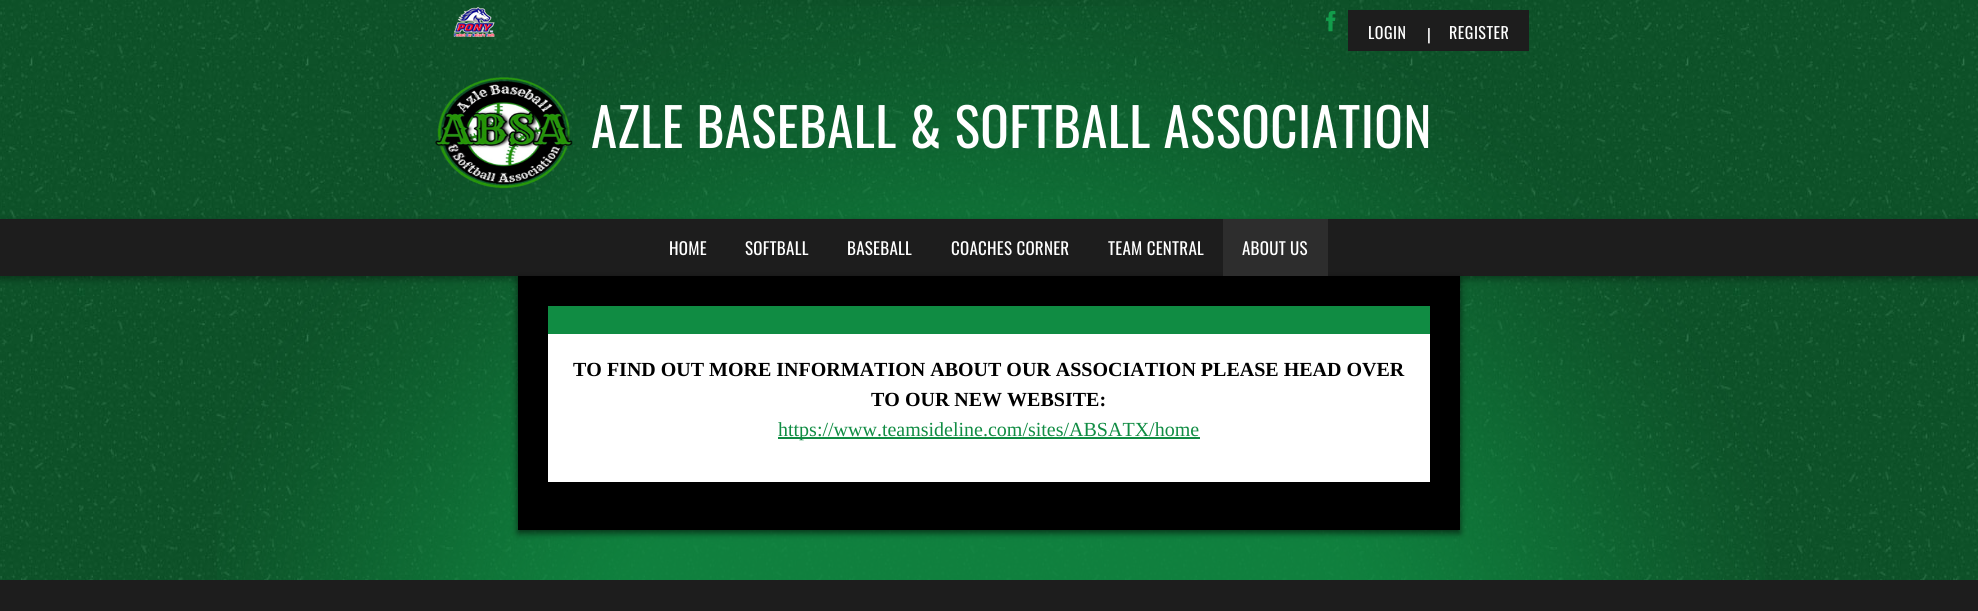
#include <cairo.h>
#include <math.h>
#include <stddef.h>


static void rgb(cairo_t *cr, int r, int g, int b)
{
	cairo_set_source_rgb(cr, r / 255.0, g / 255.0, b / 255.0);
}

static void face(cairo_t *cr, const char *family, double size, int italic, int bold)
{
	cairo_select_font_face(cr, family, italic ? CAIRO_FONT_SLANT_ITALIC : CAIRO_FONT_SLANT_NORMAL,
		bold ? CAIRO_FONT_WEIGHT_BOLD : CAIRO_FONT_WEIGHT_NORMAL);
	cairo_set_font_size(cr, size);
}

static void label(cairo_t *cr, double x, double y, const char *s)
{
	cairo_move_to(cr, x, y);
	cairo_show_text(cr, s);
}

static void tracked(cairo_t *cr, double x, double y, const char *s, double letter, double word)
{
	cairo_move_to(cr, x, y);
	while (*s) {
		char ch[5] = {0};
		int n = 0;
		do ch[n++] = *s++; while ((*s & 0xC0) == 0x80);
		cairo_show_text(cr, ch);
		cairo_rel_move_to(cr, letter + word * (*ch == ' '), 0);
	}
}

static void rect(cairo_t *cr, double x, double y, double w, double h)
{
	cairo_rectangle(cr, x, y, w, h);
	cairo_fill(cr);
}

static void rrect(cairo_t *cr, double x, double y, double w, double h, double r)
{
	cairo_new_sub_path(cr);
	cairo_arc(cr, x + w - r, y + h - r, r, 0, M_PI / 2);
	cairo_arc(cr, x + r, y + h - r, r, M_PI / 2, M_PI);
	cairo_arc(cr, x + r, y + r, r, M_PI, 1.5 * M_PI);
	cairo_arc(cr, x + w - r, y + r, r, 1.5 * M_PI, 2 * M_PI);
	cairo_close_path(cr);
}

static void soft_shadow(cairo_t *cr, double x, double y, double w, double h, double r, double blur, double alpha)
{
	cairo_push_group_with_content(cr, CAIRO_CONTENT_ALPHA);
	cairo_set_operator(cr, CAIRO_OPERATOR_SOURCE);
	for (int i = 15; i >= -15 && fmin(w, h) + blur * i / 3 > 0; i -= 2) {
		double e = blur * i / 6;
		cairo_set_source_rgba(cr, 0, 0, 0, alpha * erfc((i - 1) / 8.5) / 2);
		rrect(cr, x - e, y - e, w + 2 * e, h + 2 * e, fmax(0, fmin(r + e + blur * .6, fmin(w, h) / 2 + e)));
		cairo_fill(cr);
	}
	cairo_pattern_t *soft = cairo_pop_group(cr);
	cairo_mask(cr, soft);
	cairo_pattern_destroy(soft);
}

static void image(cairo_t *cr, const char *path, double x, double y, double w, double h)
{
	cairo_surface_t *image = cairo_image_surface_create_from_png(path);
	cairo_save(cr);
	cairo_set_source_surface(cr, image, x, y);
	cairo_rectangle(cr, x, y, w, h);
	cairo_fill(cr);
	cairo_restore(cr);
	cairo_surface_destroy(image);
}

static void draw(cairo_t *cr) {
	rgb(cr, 255, 255, 255);
	cairo_paint(cr);
	image(cr, "image0.png", 0, 0, 1978, 580);
	image(cr, "image1.png", 217, 6, 1548, 574);
	image(cr, "image2.png", 453, 7, 42, 30);
	image(cr, "image3.png", 1326, 10, 10, 22);
	rgb(cr, 29, 29, 29);
	rect(cr, 1348, 10, 181, 41);
	face(cr, "Oswald", 16, 0, 0);
	rgb(cr, 255, 255, 255);
	tracked(cr, 1368, 39, "LOGIN", 0.5, 0);
	tracked(cr, 1427, 41, "|", 0.5, 0);
	tracked(cr, 1449, 39, "REGISTER", 0.5, 0);
	image(cr, "image4.png", 435, 77, 138, 112);
	face(cr, "Oswald", 53, 0, 0);
	tracked(cr, 591, 148, "AZLE BASEBALL & SOFTBALL ASSOCIATION", 0.5, 0);
	rgb(cr, 0, 0, 0);
	soft_shadow(cr, 0, 222, 1978, 57, 0, 3.5, 0.35);
	rgb(cr, 29, 29, 29);
	rect(cr, 0, 219, 1978, 57);
	face(cr, "Oswald", 17, 0, 0);
	rgb(cr, 255, 255, 255);
	tracked(cr, 669, 255, "HOME", 0.25, 0);
	tracked(cr, 745, 255, "SOFTBALL", 0.25, 0);
	tracked(cr, 847, 255, "BASEBALL", 0.25, 0);
	tracked(cr, 951, 255, "COACHES CORNER", 0.25, 0);
	tracked(cr, 1108, 255, "TEAM CENTRAL", 0.25, 0);
	rgb(cr, 0, 0, 0);
	soft_shadow(cr, 518, 279, 942, 254, 0, 3.5, 0.61);
	rgb(cr, 45, 45, 45);
	rect(cr, 1223, 219, 105, 57);
	rgb(cr, 255, 255, 255);
	tracked(cr, 1242, 255, "ABOUT US", 0.25, 0);
	rgb(cr, 0, 0, 0);
	rect(cr, 518, 276, 942, 254);
	rgb(cr, 16, 140, 67);
	rect(cr, 548, 306, 882, 28);
	rgb(cr, 255, 255, 255);
	rect(cr, 548, 334, 882, 148);
	face(cr, "Liberation Serif", 20, 0, 1);
	rgb(cr, 0, 0, 0);
	label(cr, 573, 376, "TO FIND OUT MORE INFORMATION ABOUT OUR ASSOCIATION PLEASE HEAD OVER");
	label(cr, 871, 406, "TO OUR NEW WEBSITE:");
	rgb(cr, 16, 140, 67);
	rect(cr, 778, 437, 422, 2);
	face(cr, "Liberation Serif", 20, 0, 0);
	label(cr, 778, 436, "https://www.teamsideline.com/sites/ABSATX/home");
	rgb(cr, 29, 29, 29);
	rect(cr, 0, 580, 1978, 31);
}

int main(void) {
	cairo_surface_t *surface = cairo_image_surface_create(CAIRO_FORMAT_RGB24, 1978, 611);
	cairo_t *cr = cairo_create(surface);
	cairo_font_options_t *options = cairo_font_options_create();
	cairo_font_options_set_hint_metrics(options, CAIRO_HINT_METRICS_OFF);
	cairo_font_options_set_hint_style(options, CAIRO_HINT_STYLE_NONE);
	cairo_set_font_options(cr, options);
	cairo_set_miter_limit(cr, 4);
	draw(cr);
	cairo_surface_write_to_png(surface, "render.png");
	cairo_font_options_destroy(options);
	cairo_destroy(cr);
	cairo_surface_destroy(surface);
	return 0;
}
